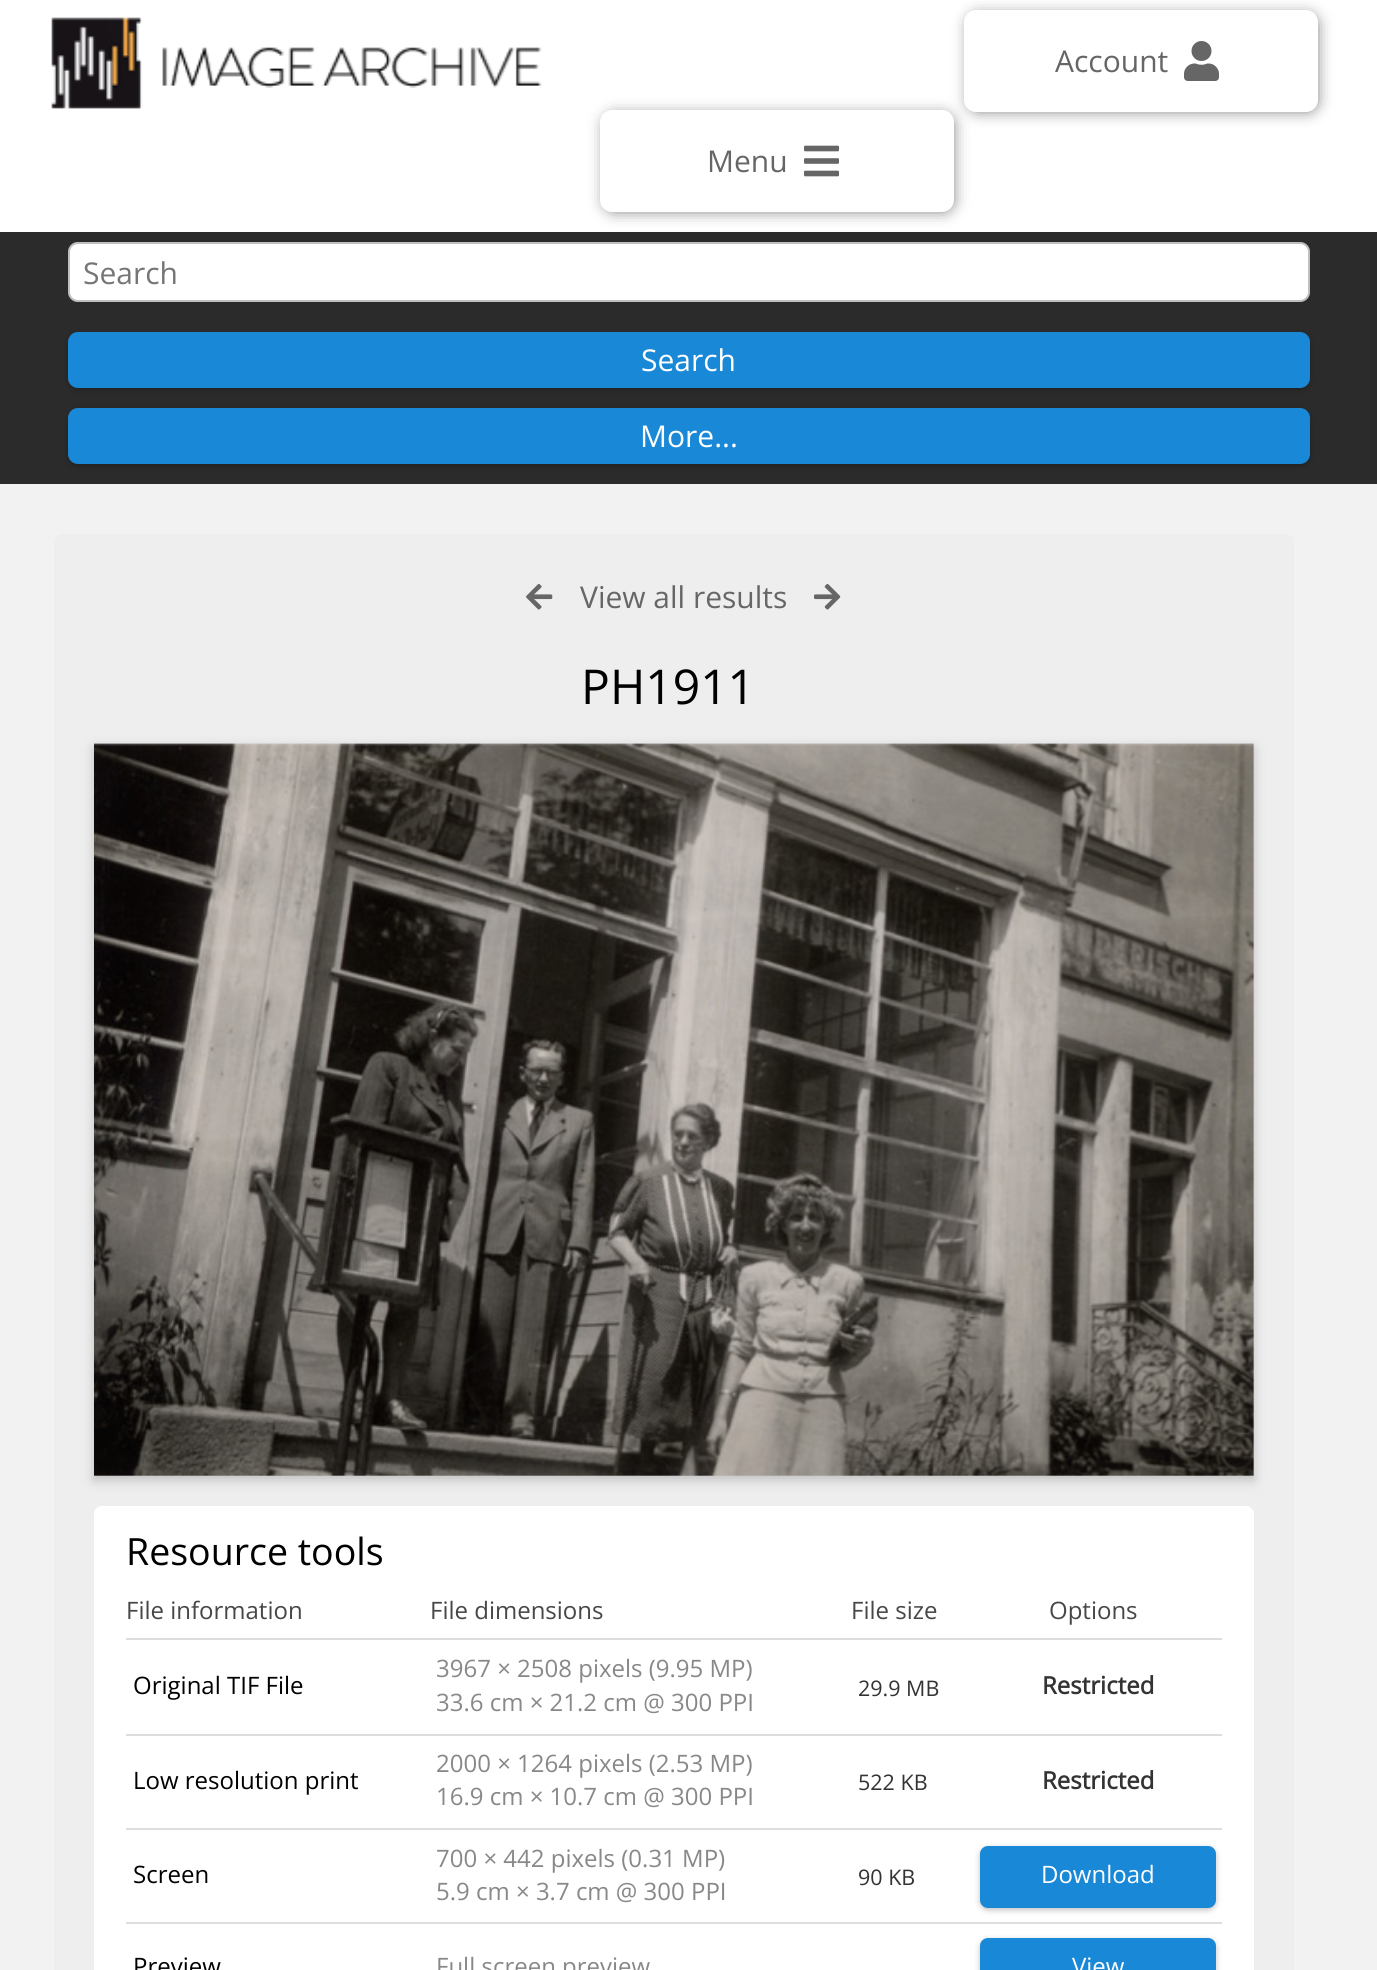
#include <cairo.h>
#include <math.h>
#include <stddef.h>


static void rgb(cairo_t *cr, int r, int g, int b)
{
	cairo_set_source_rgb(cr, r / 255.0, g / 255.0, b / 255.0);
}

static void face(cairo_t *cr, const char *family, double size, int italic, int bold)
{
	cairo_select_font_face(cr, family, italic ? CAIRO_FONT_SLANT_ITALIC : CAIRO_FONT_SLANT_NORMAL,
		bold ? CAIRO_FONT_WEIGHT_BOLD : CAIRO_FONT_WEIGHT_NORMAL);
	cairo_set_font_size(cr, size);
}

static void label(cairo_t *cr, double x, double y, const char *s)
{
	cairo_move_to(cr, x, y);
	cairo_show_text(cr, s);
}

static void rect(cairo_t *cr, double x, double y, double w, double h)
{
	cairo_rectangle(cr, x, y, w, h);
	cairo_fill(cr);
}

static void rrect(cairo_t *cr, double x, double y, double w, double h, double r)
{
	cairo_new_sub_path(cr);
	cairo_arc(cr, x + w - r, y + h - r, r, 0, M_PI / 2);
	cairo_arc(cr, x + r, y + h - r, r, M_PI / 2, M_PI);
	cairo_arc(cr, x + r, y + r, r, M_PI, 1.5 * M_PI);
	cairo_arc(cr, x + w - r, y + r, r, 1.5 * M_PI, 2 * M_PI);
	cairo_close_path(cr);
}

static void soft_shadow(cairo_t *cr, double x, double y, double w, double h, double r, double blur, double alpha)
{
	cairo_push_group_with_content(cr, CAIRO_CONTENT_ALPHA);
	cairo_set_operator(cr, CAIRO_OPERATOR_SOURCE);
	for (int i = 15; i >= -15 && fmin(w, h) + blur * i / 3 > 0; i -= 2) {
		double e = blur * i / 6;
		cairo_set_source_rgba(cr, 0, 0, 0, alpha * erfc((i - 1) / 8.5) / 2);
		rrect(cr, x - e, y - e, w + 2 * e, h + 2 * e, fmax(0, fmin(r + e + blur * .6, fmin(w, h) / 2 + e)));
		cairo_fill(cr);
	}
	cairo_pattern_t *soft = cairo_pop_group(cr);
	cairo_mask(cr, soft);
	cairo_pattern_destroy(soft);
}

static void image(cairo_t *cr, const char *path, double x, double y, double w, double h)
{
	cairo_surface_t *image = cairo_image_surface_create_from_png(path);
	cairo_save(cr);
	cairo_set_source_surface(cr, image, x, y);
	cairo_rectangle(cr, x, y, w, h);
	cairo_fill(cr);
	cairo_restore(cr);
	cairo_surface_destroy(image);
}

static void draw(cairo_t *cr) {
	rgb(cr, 242, 242, 242);
	cairo_paint(cr);
	rgb(cr, 255, 255, 255);
	rect(cr, 0, 0, 1377, 232);
	image(cr, "image0.png", 51, 17, 491, 92);
	rgb(cr, 102, 102, 102);
	soft_shadow(cr, 970, 16, 346, 94, 8, 8, 1);
	rgb(cr, 255, 255, 255);
	rrect(cr, 964, 10, 354, 102, 12);
	cairo_fill(cr);
	face(cr, "Open Sans", 30, 0, 0);
	rgb(cr, 102, 102, 102);
	label(cr, 1055, 72, "Account");
	image(cr, "image1.png", 1184, 41, 35, 40);
	rgb(cr, 102, 102, 102);
	soft_shadow(cr, 606, 116, 346, 94, 8, 8, 1);
	rgb(cr, 255, 255, 255);
	rrect(cr, 600, 110, 354, 102, 12);
	cairo_fill(cr);
	rgb(cr, 102, 102, 102);
	label(cr, 707, 172, "Menu");
	image(cr, "image2.png", 804, 145, 35, 32);
	rgb(cr, 43, 43, 43);
	rect(cr, 0, 232, 1377, 252);
	rgb(cr, 255, 255, 255);
	rrect(cr, 68, 242, 1242, 60, 10);
	cairo_fill(cr);
	rrect(cr, 69, 243, 1240, 58, 9);
	cairo_set_source_rgba(cr, 0, 0, 0, 0.25);
	cairo_stroke(cr);
	rgb(cr, 117, 117, 117);
	label(cr, 83, 284, "Search");
	rgb(cr, 0, 0, 0);
	soft_shadow(cr, 68, 334, 1242, 56, 10, 3, 0.25);
	rgb(cr, 25, 136, 215);
	rrect(cr, 68, 332, 1242, 56, 10);
	cairo_fill(cr);
	rgb(cr, 255, 255, 255);
	label(cr, 641, 371, "Search");
	rgb(cr, 0, 0, 0);
	soft_shadow(cr, 68, 410, 1242, 56, 10, 3, 0.25);
	rgb(cr, 25, 136, 215);
	rrect(cr, 68, 408, 1242, 56, 10);
	cairo_fill(cr);
	rgb(cr, 255, 255, 255);
	label(cr, 640, 447, "More...");
	rgb(cr, 238, 238, 238);
	rrect(cr, 54, 534, 1240, 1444, 8);
	cairo_fill(cr);
	image(cr, "image3.png", 526, 584, 27, 26);
	rgb(cr, 102, 102, 102);
	label(cr, 580, 608, "View all results");
	image(cr, "image4.png", 814, 584, 27, 26);
	face(cr, "Open Sans", 48, 0, 0);
	rgb(cr, 0, 0, 0);
	label(cr, 581, 704, "PH1911");
	rgb(cr, 0, 0, 0);
	soft_shadow(cr, 94, 748, 1160, 732, 0, 6, 0.2);
	image(cr, "image5.png", 94, 743, 1160, 733);
	rgb(cr, 255, 255, 255);
	rrect(cr, 94, 1506, 1160, 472, 8);
	cairo_fill(cr);
	face(cr, "Open Sans", 37.5, 0, 0);
	rgb(cr, 0, 0, 0);
	label(cr, 126, 1565, "Resource tools");
	face(cr, "Open Sans", 24, 0, 0);
	rgb(cr, 71, 71, 71);
	label(cr, 126, 1619, "File information");
	label(cr, 430, 1619, "File dimensions");
	label(cr, 851, 1619, "File size");
	label(cr, 1049, 1619, "Options");
	rgb(cr, 221, 221, 221);
	rect(cr, 126, 1638, 1096, 2);
	rgb(cr, 0, 0, 0);
	label(cr, 133, 1694, "Original TIF File");
	rgb(cr, 136, 136, 136);
	label(cr, 436, 1677, "3967 × 2508 pixels (9.95 MP)");
	label(cr, 436, 1711, "33.6 cm × 21.2 cm @ 300 PPI");
	face(cr, "Open Sans", 21.5, 0, 0);
	rgb(cr, 51, 51, 51);
	label(cr, 858, 1696, "29.9 MB");
	face(cr, "Open Sans", 24, 0, 1);
	label(cr, 1042, 1694, "Restricted");
	rgb(cr, 221, 221, 221);
	rect(cr, 126, 1734, 1096, 2);
	face(cr, "Open Sans", 24, 0, 0);
	rgb(cr, 0, 0, 0);
	label(cr, 133, 1789, "Low resolution print");
	rgb(cr, 136, 136, 136);
	label(cr, 436, 1772, "2000 × 1264 pixels (2.53 MP)");
	label(cr, 436, 1805, "16.9 cm × 10.7 cm @ 300 PPI");
	face(cr, "Open Sans", 21.5, 0, 0);
	rgb(cr, 51, 51, 51);
	label(cr, 858, 1790, "522 KB");
	face(cr, "Open Sans", 24, 0, 1);
	label(cr, 1042, 1789, "Restricted");
	rgb(cr, 221, 221, 221);
	rect(cr, 126, 1828, 1096, 2);
	face(cr, "Open Sans", 24, 0, 0);
	rgb(cr, 0, 0, 0);
	label(cr, 133, 1883, "Screen");
	rgb(cr, 136, 136, 136);
	label(cr, 436, 1867, "700 × 442 pixels (0.31 MP)");
	label(cr, 436, 1900, "5.9 cm × 3.7 cm @ 300 PPI");
	face(cr, "Open Sans", 21.5, 0, 0);
	rgb(cr, 51, 51, 51);
	label(cr, 858, 1885, "90 KB");
	rgb(cr, 0, 0, 0);
	soft_shadow(cr, 980, 1848, 236, 62, 8, 3, 0.25);
	rgb(cr, 25, 136, 215);
	rrect(cr, 980, 1846, 236, 62, 8);
	cairo_fill(cr);
	face(cr, "Open Sans", 24, 0, 0);
	rgb(cr, 255, 255, 255);
	label(cr, 1041, 1883, "Download");
	rgb(cr, 221, 221, 221);
	rect(cr, 126, 1922, 1096, 2);
	rgb(cr, 0, 0, 0);
	label(cr, 133, 1975, "Preview");
	rgb(cr, 136, 136, 136);
	label(cr, 436, 1975, "Full screen preview");
	rgb(cr, 0, 0, 0);
	soft_shadow(cr, 980, 1940, 236, 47, 8, 3, 0.25);
	rgb(cr, 25, 136, 215);
	rrect(cr, 980, 1938, 236, 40, 8);
	cairo_fill(cr);
	rgb(cr, 255, 255, 255);
	label(cr, 1072, 1975, "View");
}

int main(void) {
	cairo_surface_t *surface = cairo_image_surface_create(CAIRO_FORMAT_RGB24, 1377, 1970);
	cairo_t *cr = cairo_create(surface);
	cairo_font_options_t *options = cairo_font_options_create();
	cairo_font_options_set_hint_metrics(options, CAIRO_HINT_METRICS_OFF);
	cairo_font_options_set_hint_style(options, CAIRO_HINT_STYLE_NONE);
	cairo_set_font_options(cr, options);
	cairo_set_miter_limit(cr, 4);
	draw(cr);
	cairo_surface_write_to_png(surface, "render.png");
	cairo_font_options_destroy(options);
	cairo_destroy(cr);
	cairo_surface_destroy(surface);
	return 0;
}
